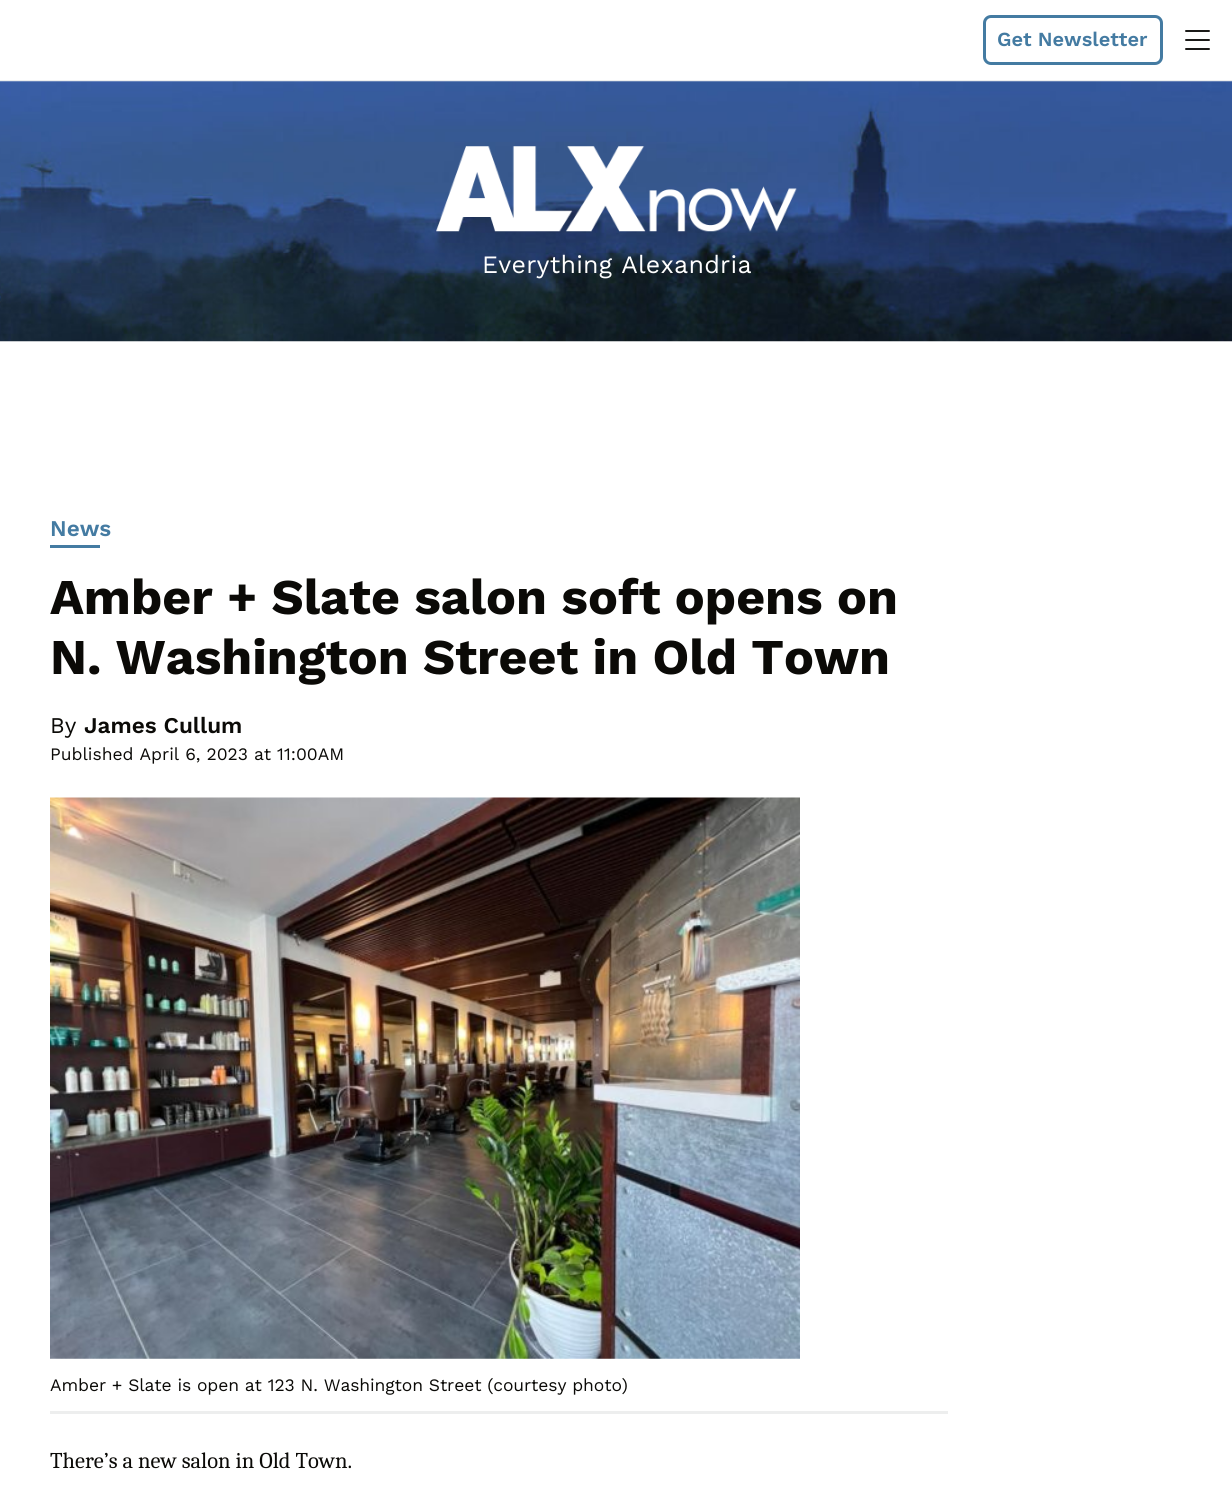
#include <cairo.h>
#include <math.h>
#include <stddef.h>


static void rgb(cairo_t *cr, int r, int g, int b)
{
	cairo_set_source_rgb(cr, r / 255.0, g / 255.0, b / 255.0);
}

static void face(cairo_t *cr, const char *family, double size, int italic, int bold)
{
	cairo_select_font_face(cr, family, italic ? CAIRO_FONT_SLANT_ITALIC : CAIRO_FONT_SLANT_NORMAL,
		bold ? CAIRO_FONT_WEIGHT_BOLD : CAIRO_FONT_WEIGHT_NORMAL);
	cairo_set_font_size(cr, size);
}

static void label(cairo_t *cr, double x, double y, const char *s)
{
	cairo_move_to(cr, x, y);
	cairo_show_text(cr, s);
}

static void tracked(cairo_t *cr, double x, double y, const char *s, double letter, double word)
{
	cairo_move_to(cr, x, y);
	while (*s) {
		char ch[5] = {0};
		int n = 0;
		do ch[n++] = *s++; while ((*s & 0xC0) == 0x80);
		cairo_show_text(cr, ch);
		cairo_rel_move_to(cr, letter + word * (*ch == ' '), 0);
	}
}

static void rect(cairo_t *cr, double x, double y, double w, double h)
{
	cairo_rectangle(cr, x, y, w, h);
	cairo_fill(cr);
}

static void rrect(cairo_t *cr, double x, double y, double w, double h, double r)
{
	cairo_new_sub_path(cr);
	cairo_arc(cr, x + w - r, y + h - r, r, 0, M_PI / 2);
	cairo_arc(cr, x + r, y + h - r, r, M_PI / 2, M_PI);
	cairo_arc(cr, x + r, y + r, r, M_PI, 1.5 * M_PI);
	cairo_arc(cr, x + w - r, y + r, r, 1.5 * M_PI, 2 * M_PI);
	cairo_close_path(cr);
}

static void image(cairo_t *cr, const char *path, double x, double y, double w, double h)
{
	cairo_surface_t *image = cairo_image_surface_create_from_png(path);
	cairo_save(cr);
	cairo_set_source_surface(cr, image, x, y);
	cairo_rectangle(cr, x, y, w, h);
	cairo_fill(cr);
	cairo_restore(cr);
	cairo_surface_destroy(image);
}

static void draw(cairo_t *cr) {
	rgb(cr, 255, 255, 255);
	cairo_paint(cr);
	rgb(cr, 237, 238, 238);
	rect(cr, 0, 80, 1232, 1);
	rrect(cr, 984.5, 16.5, 177, 47, 6.5);
	rgb(cr, 68, 123, 162);
	cairo_set_line_width(cr, 3);
	cairo_stroke(cr);
	face(cr, "Work Sans SemiBold", 20, 0, 0);
	label(cr, 997, 46, "Get Newsletter");
	cairo_new_path(cr);
	cairo_move_to(cr, 1186, 31);
	cairo_line_to(cr, 1209, 31);
	cairo_move_to(cr, 1186, 40);
	cairo_line_to(cr, 1209, 40);
	cairo_move_to(cr, 1186, 49);
	cairo_line_to(cr, 1209, 49);
	rgb(cr, 11, 10, 7);
	cairo_set_line_width(cr, 1.9);
	cairo_set_line_cap(cr, CAIRO_LINE_CAP_ROUND);
	cairo_set_line_join(cr, CAIRO_LINE_JOIN_ROUND);
	cairo_stroke(cr);
	image(cr, "image0.png", 0, 81, 1232, 261);
	image(cr, "image1.png", 436, 146, 361, 86);
	face(cr, "Work Sans", 25, 0, 0);
	rgb(cr, 255, 255, 255);
	tracked(cr, 482, 273, "Everything Alexandria", 0.25, 0);
	face(cr, "Work Sans SemiBold", 22.5, 0, 0);
	rgb(cr, 68, 123, 162);
	label(cr, 50, 536, "News");
	rect(cr, 50, 545, 50, 3);
	face(cr, "Work Sans", 50, 0, 1);
	rgb(cr, 11, 10, 7);
	label(cr, 50, 614, "Amber + Slate salon soft opens on");
	label(cr, 50, 674, "N. Washington Street in Old Town");
	face(cr, "Work Sans", 22.5, 0, 0);
	label(cr, 50, 733, "By");
	face(cr, "Work Sans SemiBold", 22.5, 0, 0);
	label(cr, 84, 733, "James Cullum");
	face(cr, "Work Sans", 17.5, 0, 0);
	label(cr, 50, 760, "Published April 6, 2023 at 11:00AM");
	image(cr, "image2.png", 50, 797, 750, 562);
	rgb(cr, 237, 238, 238);
	rect(cr, 50, 1411, 898, 3);
	rgb(cr, 11, 10, 7);
	tracked(cr, 50, 1391, "Amber + Slate is open at 123 N. Washington Street (courtesy photo)", -0.1, 0);
	face(cr, "Caladea", 22.5, 0, 0);
	label(cr, 50, 1468, "There’s a new salon in Old Town.");
}

int main(void) {
	cairo_surface_t *surface = cairo_image_surface_create(CAIRO_FORMAT_RGB24, 1232, 1508);
	cairo_t *cr = cairo_create(surface);
	cairo_font_options_t *options = cairo_font_options_create();
	cairo_font_options_set_hint_metrics(options, CAIRO_HINT_METRICS_OFF);
	cairo_font_options_set_hint_style(options, CAIRO_HINT_STYLE_NONE);
	cairo_set_font_options(cr, options);
	cairo_set_miter_limit(cr, 4);
	draw(cr);
	cairo_surface_write_to_png(surface, "render.png");
	cairo_font_options_destroy(options);
	cairo_destroy(cr);
	cairo_surface_destroy(surface);
	return 0;
}
